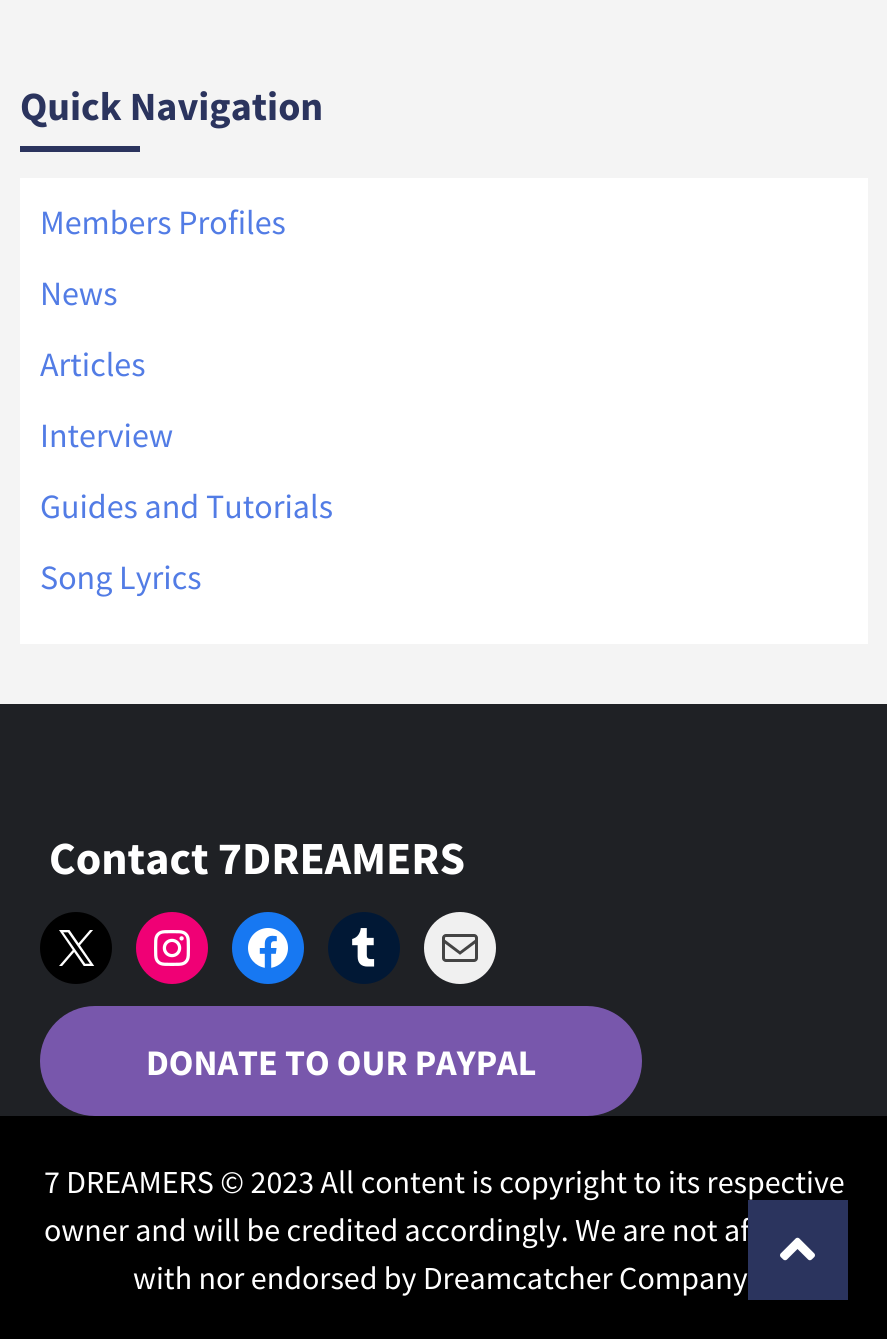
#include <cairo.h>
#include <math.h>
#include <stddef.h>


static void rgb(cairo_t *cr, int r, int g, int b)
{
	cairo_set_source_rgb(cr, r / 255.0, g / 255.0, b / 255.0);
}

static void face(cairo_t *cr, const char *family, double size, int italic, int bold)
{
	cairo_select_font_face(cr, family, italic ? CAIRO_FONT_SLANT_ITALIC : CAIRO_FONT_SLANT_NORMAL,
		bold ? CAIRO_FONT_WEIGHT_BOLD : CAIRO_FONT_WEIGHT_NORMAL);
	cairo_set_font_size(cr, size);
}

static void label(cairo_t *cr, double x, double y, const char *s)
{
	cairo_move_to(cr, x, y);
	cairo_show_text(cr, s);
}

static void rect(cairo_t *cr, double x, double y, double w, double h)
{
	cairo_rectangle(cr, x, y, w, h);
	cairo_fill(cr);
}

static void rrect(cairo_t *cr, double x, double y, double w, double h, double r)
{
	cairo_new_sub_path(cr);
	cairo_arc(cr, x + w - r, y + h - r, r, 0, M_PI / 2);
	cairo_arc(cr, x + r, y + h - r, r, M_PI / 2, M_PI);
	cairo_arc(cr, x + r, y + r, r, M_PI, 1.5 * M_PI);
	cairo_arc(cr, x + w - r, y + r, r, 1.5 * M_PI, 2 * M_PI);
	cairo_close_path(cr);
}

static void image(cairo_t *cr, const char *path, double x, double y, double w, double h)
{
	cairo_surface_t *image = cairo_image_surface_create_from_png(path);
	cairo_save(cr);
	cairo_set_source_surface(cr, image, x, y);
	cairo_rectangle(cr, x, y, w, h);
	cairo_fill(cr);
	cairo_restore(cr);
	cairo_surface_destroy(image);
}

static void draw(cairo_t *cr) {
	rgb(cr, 244, 244, 244);
	cairo_paint(cr);
	face(cr, "Source Sans Pro", 40, 0, 1);
	rgb(cr, 43, 52, 94);
	label(cr, 20, 120, "Quick Navigation");
	rect(cr, 20, 146, 120, 6);
	rgb(cr, 255, 255, 255);
	rect(cr, 20, 178, 848, 466);
	face(cr, "Source Sans Pro", 34, 0, 0);
	rgb(cr, 82, 124, 229);
	label(cr, 40, 234, "Members Profiles");
	label(cr, 40, 305, "News");
	label(cr, 40, 376, "Articles");
	label(cr, 40, 447, "Interview");
	label(cr, 40, 518, "Guides and Tutorials");
	label(cr, 40, 589, "Song Lyrics");
	rgb(cr, 31, 33, 37);
	rect(cr, 0, 704, 887, 412);
	face(cr, "Source Sans Pro", 46, 0, 1);
	rgb(cr, 255, 255, 255);
	label(cr, 49, 874, "Contact 7DREAMERS");
	rgb(cr, 0, 0, 0);
	cairo_new_path(cr);
	cairo_arc(cr, 76, 948, 36, 0, 2 * M_PI);
	cairo_fill(cr);
	image(cr, "image0.png", 59, 930, 36, 36);
	rgb(cr, 240, 0, 117);
	cairo_arc(cr, 172, 948, 36, 0, 2 * M_PI);
	cairo_fill(cr);
	image(cr, "image1.png", 154, 930, 36, 36);
	rgb(cr, 23, 120, 242);
	cairo_arc(cr, 268, 948, 36, 0, 2 * M_PI);
	cairo_fill(cr);
	image(cr, "image2.png", 248, 928, 40, 40);
	rgb(cr, 1, 24, 53);
	cairo_arc(cr, 364, 948, 36, 0, 2 * M_PI);
	cairo_fill(cr);
	image(cr, "image3.png", 352, 928, 23, 39);
	rgb(cr, 240, 240, 240);
	cairo_arc(cr, 460, 948, 36, 0, 2 * M_PI);
	cairo_fill(cr);
	image(cr, "image4.png", 442, 934, 36, 28);
	rgb(cr, 120, 87, 172);
	rrect(cr, 40, 1006, 602, 110, 55);
	cairo_fill(cr);
	face(cr, "Source Sans Pro", 36, 0, 1);
	rgb(cr, 255, 255, 255);
	label(cr, 146, 1075, "DONATE TO OUR PAYPAL");
	rgb(cr, 0, 0, 0);
	rect(cr, 0, 1116, 887, 223);
	face(cr, "Source Sans Pro", 32, 0, 0);
	rgb(cr, 255, 255, 255);
	label(cr, 44, 1193, "7 DREAMERS © 2023 All content is copyright to its respective");
	label(cr, 44, 1241, "owner and will be credited accordingly. We are not af");
	label(cr, 133, 1289, "with nor endorsed by Dreamcatcher Company");
	rgb(cr, 43, 52, 94);
	rect(cr, 748, 1200, 100, 100);
	image(cr, "image5.png", 780, 1237, 35, 24);
}

int main(void) {
	cairo_surface_t *surface = cairo_image_surface_create(CAIRO_FORMAT_RGB24, 887, 1339);
	cairo_t *cr = cairo_create(surface);
	cairo_font_options_t *options = cairo_font_options_create();
	cairo_font_options_set_hint_metrics(options, CAIRO_HINT_METRICS_OFF);
	cairo_font_options_set_hint_style(options, CAIRO_HINT_STYLE_NONE);
	cairo_set_font_options(cr, options);
	cairo_set_miter_limit(cr, 4);
	draw(cr);
	cairo_surface_write_to_png(surface, "render.png");
	cairo_font_options_destroy(options);
	cairo_destroy(cr);
	cairo_surface_destroy(surface);
	return 0;
}
